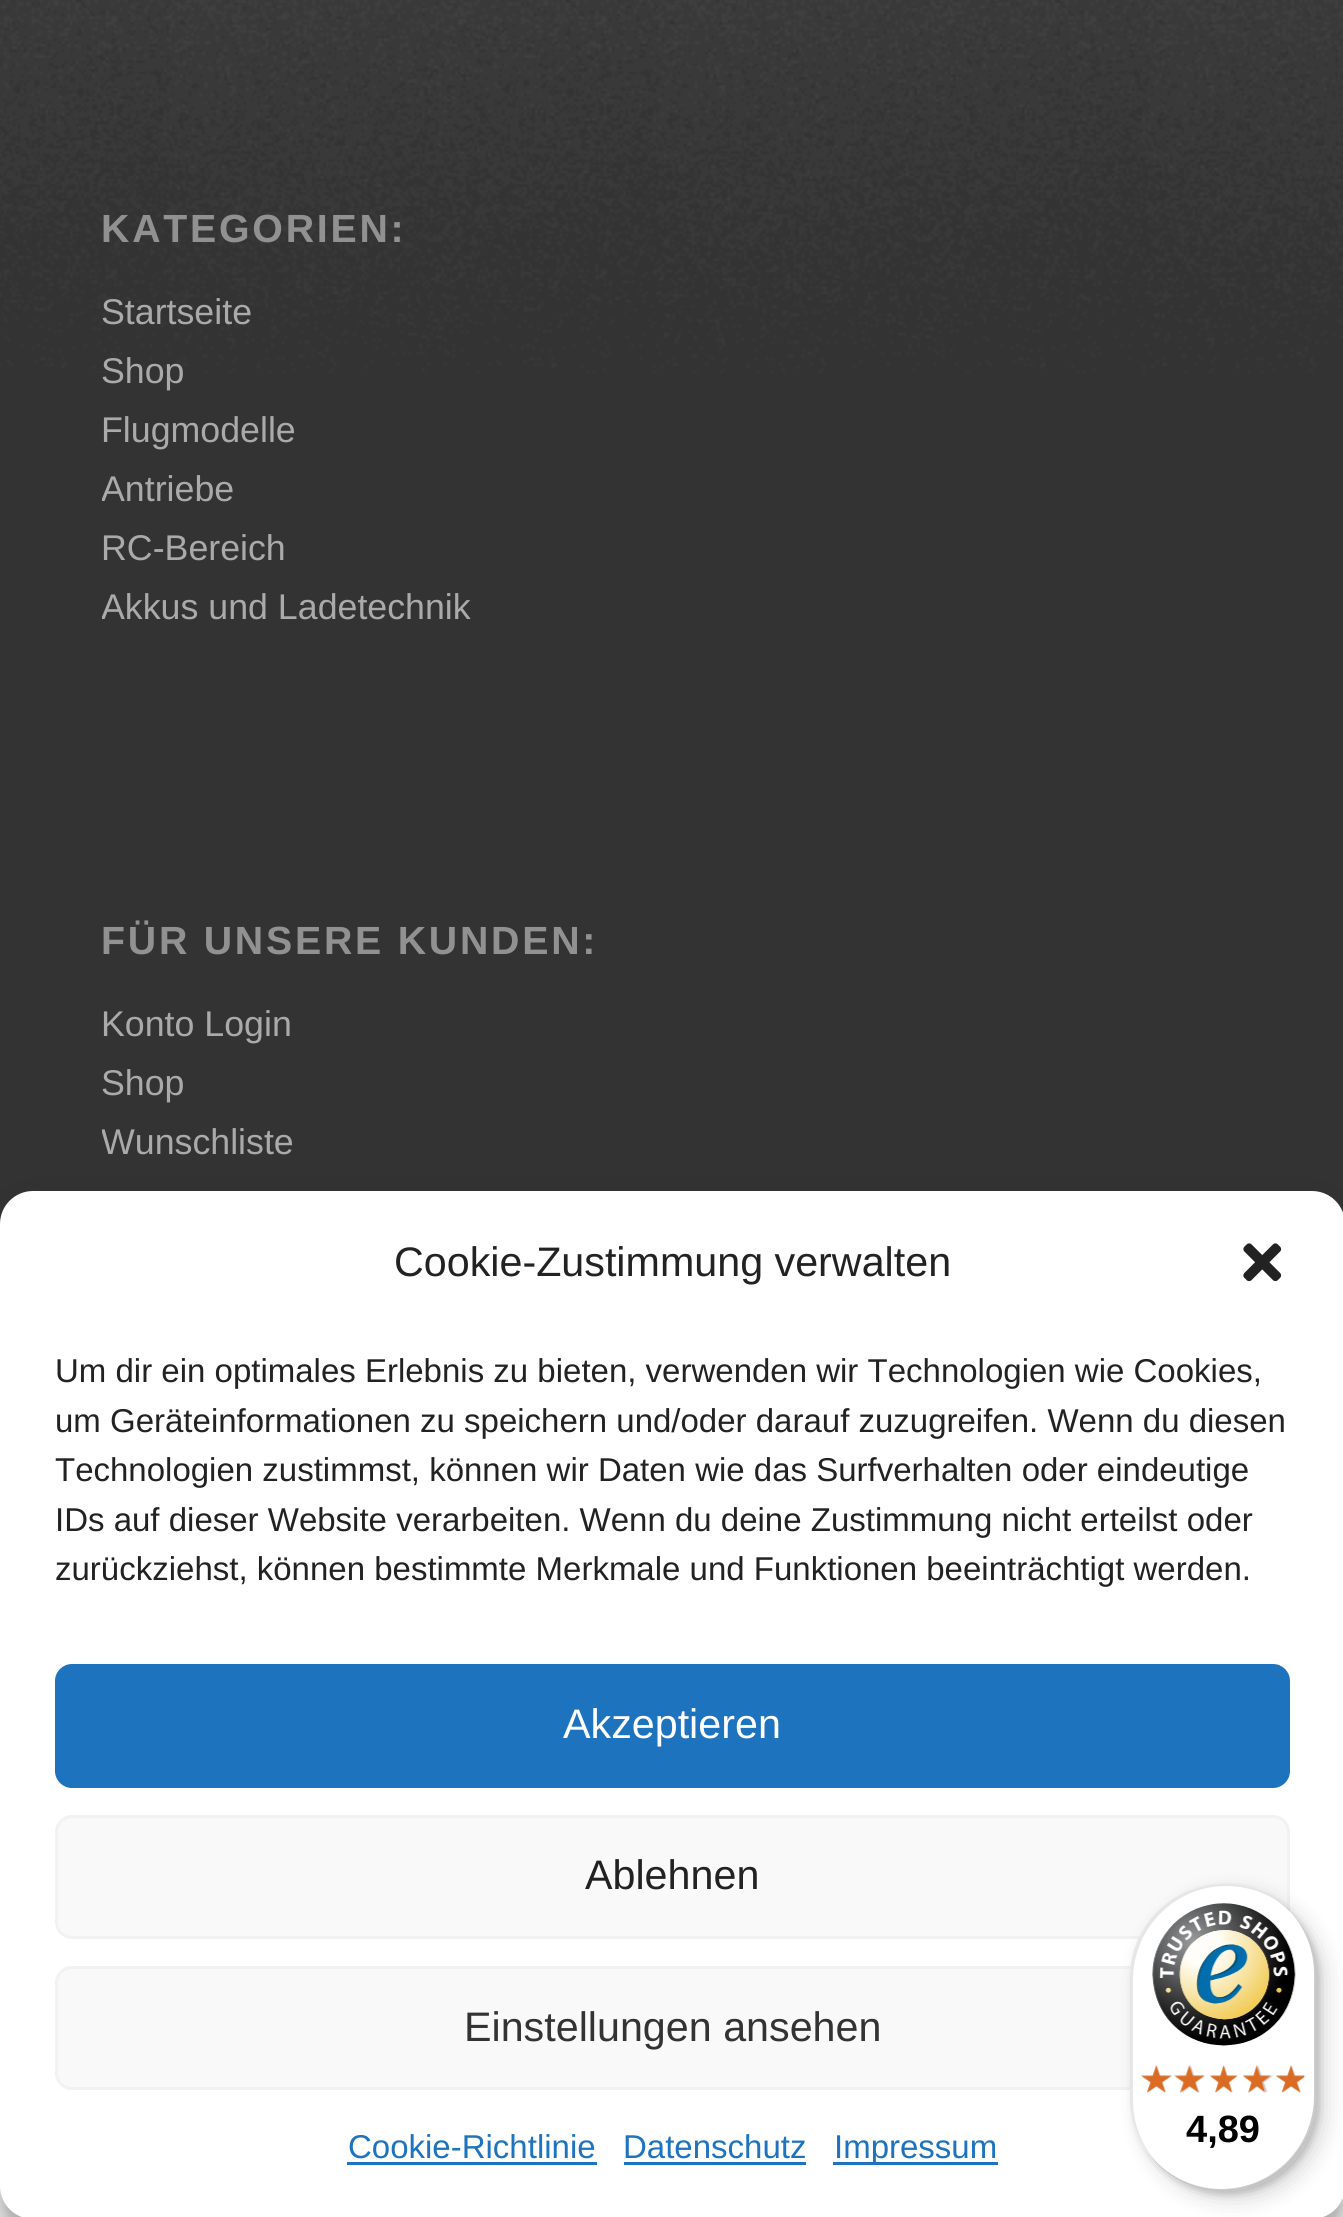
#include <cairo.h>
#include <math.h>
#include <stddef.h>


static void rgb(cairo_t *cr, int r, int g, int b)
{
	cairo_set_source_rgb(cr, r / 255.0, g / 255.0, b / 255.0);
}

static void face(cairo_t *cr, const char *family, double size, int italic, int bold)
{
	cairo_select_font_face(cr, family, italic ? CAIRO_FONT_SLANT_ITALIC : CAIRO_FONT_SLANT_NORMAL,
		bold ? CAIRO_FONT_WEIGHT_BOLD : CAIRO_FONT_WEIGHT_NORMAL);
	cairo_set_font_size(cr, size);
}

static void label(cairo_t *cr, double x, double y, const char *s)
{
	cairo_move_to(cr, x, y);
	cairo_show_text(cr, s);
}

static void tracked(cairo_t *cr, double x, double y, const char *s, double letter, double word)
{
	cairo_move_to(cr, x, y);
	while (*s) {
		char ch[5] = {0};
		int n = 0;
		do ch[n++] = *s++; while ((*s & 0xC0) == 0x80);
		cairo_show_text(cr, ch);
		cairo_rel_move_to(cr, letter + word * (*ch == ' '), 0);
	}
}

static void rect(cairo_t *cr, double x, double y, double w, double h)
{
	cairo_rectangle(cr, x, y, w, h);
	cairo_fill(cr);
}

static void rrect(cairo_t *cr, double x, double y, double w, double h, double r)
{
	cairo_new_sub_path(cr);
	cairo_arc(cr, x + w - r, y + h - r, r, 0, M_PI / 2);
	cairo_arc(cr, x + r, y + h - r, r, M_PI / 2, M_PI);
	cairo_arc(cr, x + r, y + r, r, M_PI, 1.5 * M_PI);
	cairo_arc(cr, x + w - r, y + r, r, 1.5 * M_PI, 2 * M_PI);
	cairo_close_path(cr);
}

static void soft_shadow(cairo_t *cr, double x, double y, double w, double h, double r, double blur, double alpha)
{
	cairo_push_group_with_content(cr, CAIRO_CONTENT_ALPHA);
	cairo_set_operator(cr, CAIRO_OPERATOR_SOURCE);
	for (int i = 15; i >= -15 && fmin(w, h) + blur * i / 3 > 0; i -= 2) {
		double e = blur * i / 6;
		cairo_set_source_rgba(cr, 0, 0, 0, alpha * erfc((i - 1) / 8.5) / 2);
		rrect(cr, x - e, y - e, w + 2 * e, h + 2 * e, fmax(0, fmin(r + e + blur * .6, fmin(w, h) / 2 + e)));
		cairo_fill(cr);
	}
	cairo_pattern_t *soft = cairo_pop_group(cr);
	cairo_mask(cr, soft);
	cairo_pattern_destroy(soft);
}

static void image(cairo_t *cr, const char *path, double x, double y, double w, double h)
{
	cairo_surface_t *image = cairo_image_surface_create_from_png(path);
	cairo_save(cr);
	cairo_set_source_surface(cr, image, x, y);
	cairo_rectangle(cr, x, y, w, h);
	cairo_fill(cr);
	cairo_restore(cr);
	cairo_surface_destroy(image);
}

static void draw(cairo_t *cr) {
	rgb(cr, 51, 51, 51);
	cairo_paint(cr);
	image(cr, "image0.png", 0, 0, 1343, 373);
	face(cr, "Liberation Sans", 39.3, 0, 1);
	rgb(cr, 145, 145, 145);
	tracked(cr, 101, 242, "KATEGORIEN:", 2.75, 0);
	face(cr, "Liberation Sans", 35.75, 0, 0);
	rgb(cr, 170, 170, 170);
	label(cr, 101, 324, "Startseite");
	label(cr, 101, 383, "Shop");
	label(cr, 101, 442, "Flugmodelle");
	cairo_save(cr);
	cairo_rectangle(cr, 102, 176, 1141, 492);
	cairo_clip(cr);
	label(cr, 101, 501, "Antriebe");
	cairo_restore(cr);
	label(cr, 101, 560, "RC-Bereich");
	cairo_save(cr);
	cairo_rectangle(cr, 102, 176, 1141, 492);
	cairo_clip(cr);
	label(cr, 101, 619, "Akkus und Ladetechnik");
	cairo_restore(cr);
	face(cr, "Liberation Sans", 39.3, 0, 1);
	rgb(cr, 145, 145, 145);
	tracked(cr, 101, 954, "FÜR UNSERE KUNDEN:", 2.75, 0);
	face(cr, "Liberation Sans", 35.75, 0, 0);
	rgb(cr, 170, 170, 170);
	label(cr, 101, 1036, "Konto Login");
	label(cr, 101, 1095, "Shop");
	cairo_save(cr);
	cairo_rectangle(cr, 102, 888, 1141, 432);
	cairo_clip(cr);
	label(cr, 101, 1154, "Wunschliste");
	cairo_restore(cr);
	rgb(cr, 255, 255, 255);
	rect(cr, 0, 2186, 1343, 31);
	rgb(cr, 0, 0, 0);
	soft_shadow(cr, 0, 1207, 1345, 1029, 33, 8, 0.23);
	soft_shadow(cr, 0, 1218, 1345, 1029, 33, 27.5, 0.19);
	rgb(cr, 255, 255, 255);
	rrect(cr, 0, 1191, 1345, 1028, 33);
	cairo_fill(cr);
	face(cr, "Liberation Sans", 41.25, 0, 0);
	rgb(cr, 34, 34, 34);
	label(cr, 394, 1276, "Cookie-Zustimmung verwalten");
	image(cr, "image1.png", 1243, 1243, 39, 39);
	face(cr, "Liberation Sans", 33, 0, 0);
	label(cr, 55, 1382, "Um dir ein optimales Erlebnis zu bieten, verwenden wir Technologien wie Cookies,");
	label(cr, 55, 1432, "um Geräteinformationen zu speichern und/oder darauf zuzugreifen. Wenn du diesen");
	label(cr, 55, 1481, "Technologien zustimmst, können wir Daten wie das Surfverhalten oder eindeutige");
	label(cr, 55, 1531, "IDs auf dieser Website verarbeiten. Wenn du deine Zustimmung nicht erteilst oder");
	label(cr, 55, 1580, "zurückziehst, können bestimmte Merkmale und Funktionen beeinträchtigt werden.");
	rgb(cr, 30, 115, 190);
	rrect(cr, 56.5, 1665.5, 1232, 121, 15.5);
	cairo_fill_preserve(cr);
	cairo_set_line_width(cr, 3);
	cairo_stroke(cr);
	face(cr, "Liberation Sans", 41.25, 0, 0);
	rgb(cr, 255, 255, 255);
	label(cr, 563, 1738, "Akzeptieren");
	rgb(cr, 249, 249, 249);
	rrect(cr, 56.5, 1816.5, 1232, 121, 15.5);
	cairo_fill_preserve(cr);
	rgb(cr, 242, 242, 242);
	cairo_stroke(cr);
	rgb(cr, 34, 34, 34);
	label(cr, 585, 1889, "Ablehnen");
	rgb(cr, 249, 249, 249);
	rrect(cr, 56.5, 1967.5, 1232, 121, 15.5);
	cairo_fill_preserve(cr);
	rgb(cr, 242, 242, 242);
	cairo_stroke(cr);
	rgb(cr, 51, 51, 51);
	label(cr, 464, 2041, "Einstellungen ansehen");
	face(cr, "Liberation Sans", 33, 0, 0);
	rgb(cr, 30, 115, 190);
	label(cr, 348, 2158, "Cookie-Richtlinie");
	rect(cr, 347, 2162, 250, 3);
	label(cr, 623, 2158, "Datenschutz");
	rect(cr, 624, 2162, 182, 3);
	rect(cr, 833, 2162, 165, 3);
	label(cr, 834, 2158, "Impressum");
	rgb(cr, 0, 0, 0);
	soft_shadow(cr, 1139, 1892, 187, 308, 93.5, 11, 0.15);
	soft_shadow(cr, 1133, 1887, 187, 308, 93.5, 3, 0.15);
	rgb(cr, 255, 255, 255);
	rrect(cr, 1130, 1884, 187, 308, 93.5);
	cairo_fill(cr);
	cairo_set_source_rgba(cr, 0, 0, 0, 0.1);
	cairo_new_path(cr);
	cairo_move_to(cr, 1226, 1886);
	cairo_curve_to(cr, 1246, 1886, 1265, 1892, 1280, 1903);
	cairo_curve_to(cr, 1264, 1891, 1245, 1884, 1224, 1884);
	cairo_curve_to(cr, 1172, 1884, 1130, 1926, 1130, 1978);
	cairo_line_to(cr, 1130, 2098);
	cairo_curve_to(cr, 1130, 2129, 1145, 2156, 1168, 2173);
	cairo_curve_to(cr, 1147, 2156, 1133, 2130, 1133, 2101);
	cairo_line_to(cr, 1133, 1980);
	cairo_curve_to(cr, 1133, 1928, 1175, 1886, 1226, 1886);
	cairo_close_path(cr);
	cairo_fill(cr);
	cairo_set_source_rgba(cr, 0, 0, 0, 0.2);
	cairo_new_path(cr);
	cairo_move_to(cr, 1149, 2154);
	cairo_curve_to(cr, 1166, 2177, 1193, 2192, 1224, 2192);
	cairo_curve_to(cr, 1275, 2192, 1317, 2150, 1317, 2098);
	cairo_line_to(cr, 1317, 1978);
	cairo_curve_to(cr, 1317, 1953, 1308, 1931, 1292, 1914);
	cairo_curve_to(cr, 1306, 1930, 1314, 1951, 1314, 1974);
	cairo_line_to(cr, 1314, 2096);
	cairo_curve_to(cr, 1314, 2147, 1273, 2189, 1221, 2189);
	cairo_curve_to(cr, 1192, 2189, 1166, 2175, 1149, 2154);
	cairo_close_path(cr);
	cairo_fill(cr);
	cairo_set_source_rgba(cr, 0.196, 0.196, 0.196, 0.2);
	cairo_new_path(cr);
	cairo_move_to(cr, 1144, 2148);
	cairo_curve_to(cr, 1161, 2174, 1190, 2192, 1224, 2192);
	cairo_curve_to(cr, 1275, 2192, 1317, 2150, 1317, 2098);
	cairo_line_to(cr, 1317, 1978);
	cairo_curve_to(cr, 1317, 1960, 1312, 1943, 1304, 1929);
	cairo_curve_to(cr, 1312, 1943, 1316, 1959, 1316, 1976);
	cairo_line_to(cr, 1316, 2097);
	cairo_curve_to(cr, 1316, 2148, 1274, 2190, 1222, 2190);
	cairo_curve_to(cr, 1189, 2190, 1161, 2173, 1144, 2148);
	cairo_close_path(cr);
	cairo_fill(cr);
	cairo_set_source_rgba(cr, 1, 1, 1, 0.3);
	cairo_new_path(cr);
	cairo_move_to(cr, 1145, 2149);
	cairo_curve_to(cr, 1162, 2175, 1191, 2192, 1224, 2192);
	cairo_curve_to(cr, 1275, 2192, 1317, 2150, 1317, 2098);
	cairo_line_to(cr, 1317, 1978);
	cairo_curve_to(cr, 1317, 1960, 1312, 1943, 1304, 1929);
	cairo_curve_to(cr, 1312, 1943, 1316, 1959, 1316, 1976);
	cairo_line_to(cr, 1316, 2097);
	cairo_curve_to(cr, 1316, 2149, 1274, 2190, 1222, 2190);
	cairo_curve_to(cr, 1190, 2190, 1162, 2174, 1145, 2149);
	cairo_close_path(cr);
	cairo_fill(cr);
	image(cr, "image2.png", 1152, 1903, 144, 143);
	image(cr, "image3.png", 1141, 2066, 31, 26);
	image(cr, "image4.png", 1177, 2065, 28, 28);
	image(cr, "image5.png", 1210, 2066, 28, 27);
	image(cr, "image6.png", 1243, 2065, 30, 28);
	image(cr, "image7.png", 1276, 2066, 30, 26);
	image(cr, "image8.png", 1141, 2065, 31, 28);
	image(cr, "image9.png", 1174, 2065, 31, 28);
	image(cr, "image10.png", 1210, 2065, 28, 28);
	image(cr, "image11.png", 1243, 2065, 28, 28);
	image(cr, "image12.png", 1276, 2065, 28, 28);
	face(cr, "Liberation Sans", 38, 0, 1);
	rgb(cr, 0, 0, 0);
	label(cr, 1186, 2142, "4,89");
}

int main(void) {
	cairo_surface_t *surface = cairo_image_surface_create(CAIRO_FORMAT_RGB24, 1343, 2217);
	cairo_t *cr = cairo_create(surface);
	cairo_font_options_t *options = cairo_font_options_create();
	cairo_font_options_set_hint_metrics(options, CAIRO_HINT_METRICS_OFF);
	cairo_font_options_set_hint_style(options, CAIRO_HINT_STYLE_NONE);
	cairo_set_font_options(cr, options);
	cairo_set_miter_limit(cr, 4);
	draw(cr);
	cairo_surface_write_to_png(surface, "render.png");
	cairo_font_options_destroy(options);
	cairo_destroy(cr);
	cairo_surface_destroy(surface);
	return 0;
}
